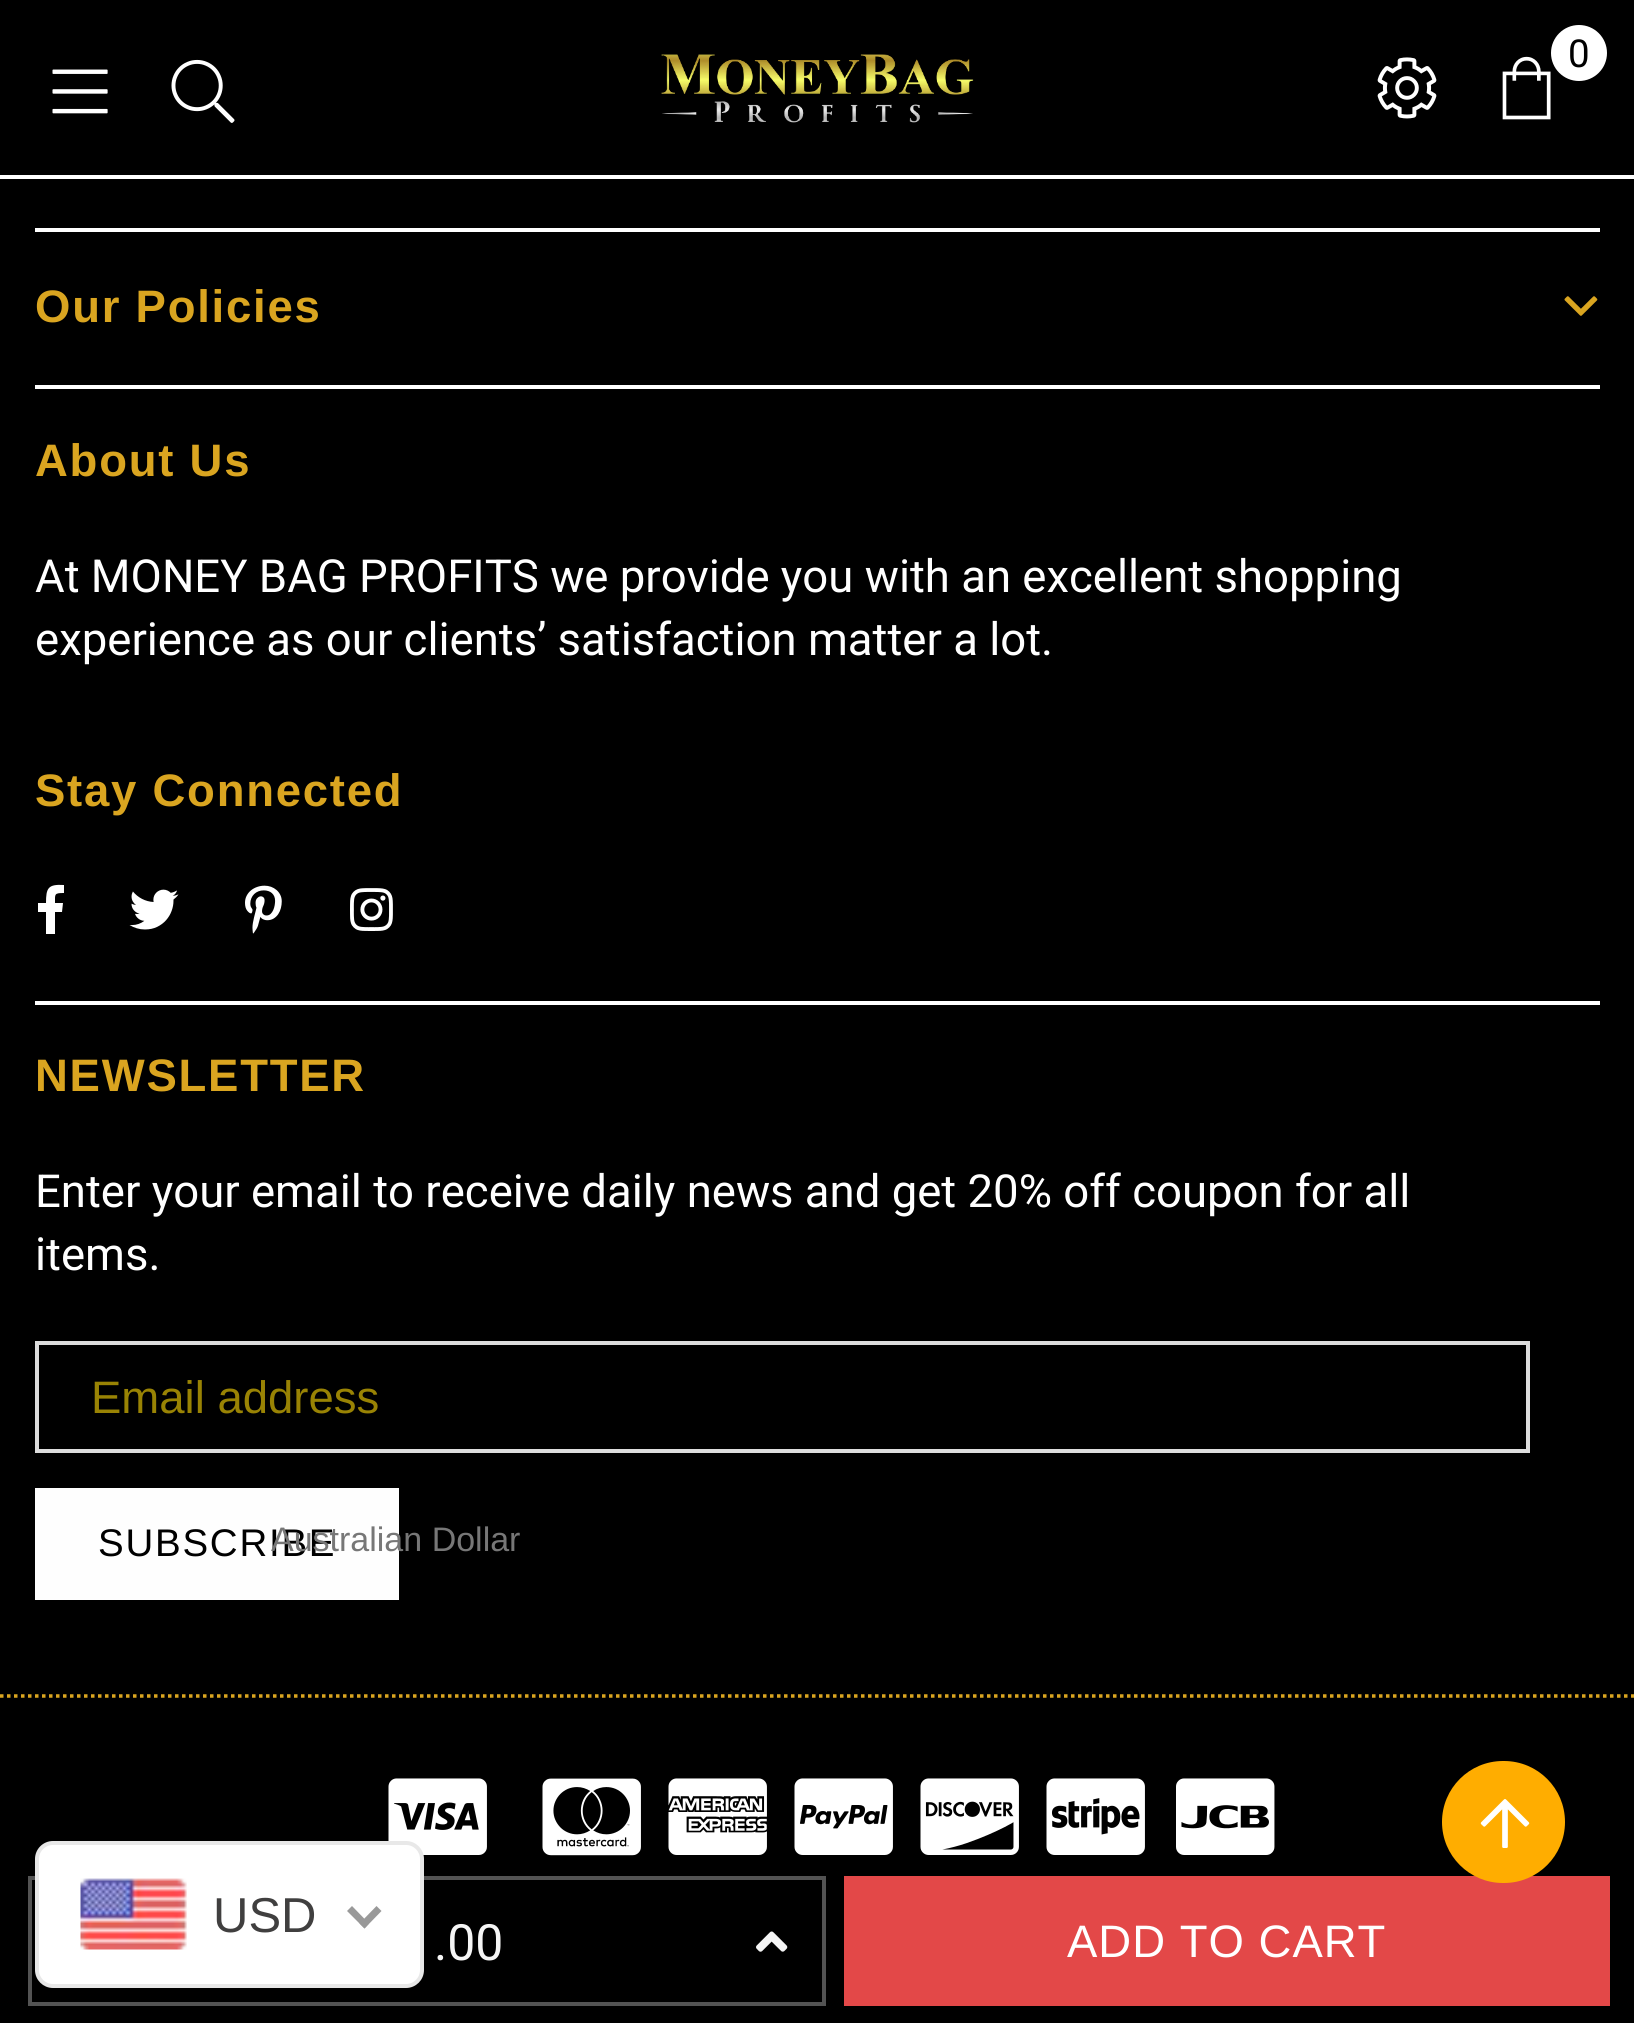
#include <cairo.h>
#include <math.h>
#include <stddef.h>


static void rgb(cairo_t *cr, int r, int g, int b)
{
	cairo_set_source_rgb(cr, r / 255.0, g / 255.0, b / 255.0);
}

static void face(cairo_t *cr, const char *family, double size, int italic, int bold)
{
	cairo_select_font_face(cr, family, italic ? CAIRO_FONT_SLANT_ITALIC : CAIRO_FONT_SLANT_NORMAL,
		bold ? CAIRO_FONT_WEIGHT_BOLD : CAIRO_FONT_WEIGHT_NORMAL);
	cairo_set_font_size(cr, size);
}

static void label(cairo_t *cr, double x, double y, const char *s)
{
	cairo_move_to(cr, x, y);
	cairo_show_text(cr, s);
}

static void tracked(cairo_t *cr, double x, double y, const char *s, double letter, double word)
{
	cairo_move_to(cr, x, y);
	while (*s) {
		char ch[5] = {0};
		int n = 0;
		do ch[n++] = *s++; while ((*s & 0xC0) == 0x80);
		cairo_show_text(cr, ch);
		cairo_rel_move_to(cr, letter + word * (*ch == ' '), 0);
	}
}

static void rect(cairo_t *cr, double x, double y, double w, double h)
{
	cairo_rectangle(cr, x, y, w, h);
	cairo_fill(cr);
}

static void rrect(cairo_t *cr, double x, double y, double w, double h, double r)
{
	cairo_new_sub_path(cr);
	cairo_arc(cr, x + w - r, y + h - r, r, 0, M_PI / 2);
	cairo_arc(cr, x + r, y + h - r, r, M_PI / 2, M_PI);
	cairo_arc(cr, x + r, y + r, r, M_PI, 1.5 * M_PI);
	cairo_arc(cr, x + w - r, y + r, r, 1.5 * M_PI, 2 * M_PI);
	cairo_close_path(cr);
}

static void image(cairo_t *cr, const char *path, double x, double y, double w, double h)
{
	cairo_surface_t *image = cairo_image_surface_create_from_png(path);
	cairo_save(cr);
	cairo_set_source_surface(cr, image, x, y);
	cairo_rectangle(cr, x, y, w, h);
	cairo_fill(cr);
	cairo_restore(cr);
	cairo_surface_destroy(image);
}

static void draw(cairo_t *cr) {
	rgb(cr, 0, 0, 0);
	cairo_paint(cr);
	rgb(cr, 255, 255, 255);
	rect(cr, 0, 175, 1634, 4);
	image(cr, "image0.png", 52, 69, 56, 45);
	image(cr, "image1.png", 171, 59, 64, 64);
	image(cr, "image2.png", 661, 54, 313, 69);
	image(cr, "image3.png", 1502, 56, 49, 64);
	cairo_arc(cr, 1579, 53, 28, 0, 2 * M_PI);
	cairo_fill(cr);
	face(cr, "Roboto", 38.5, 0, 0);
	rgb(cr, 0, 0, 0);
	label(cr, 1568, 67, "0");
	image(cr, "image4.png", 1377, 57, 60, 62);
	rgb(cr, 255, 255, 255);
	rect(cr, 35, 228, 1565, 4);
	face(cr, "Liberation Sans", 45.5, 0, 1);
	rgb(cr, 218, 165, 32);
	tracked(cr, 35, 322, "Our Policies", 1.75, 0);
	image(cr, "image5.png", 1564, 296, 34, 20);
	rgb(cr, 255, 255, 255);
	rect(cr, 35, 385, 1565, 4);
	rgb(cr, 218, 165, 32);
	tracked(cr, 35, 476, "About Us", 1.75, 0);
	face(cr, "Roboto", 45.5, 0, 0);
	rgb(cr, 255, 255, 255);
	label(cr, 35, 592, "At MONEY BAG PROFITS we provide you with an excellent shopping");
	label(cr, 35, 655, "experience as our clients’ satisfaction matter a lot.");
	face(cr, "Liberation Sans", 45.5, 0, 1);
	rgb(cr, 218, 165, 32);
	tracked(cr, 35, 806, "Stay Connected", 1.75, 0);
	rgb(cr, 255, 255, 255);
	cairo_new_path(cr);
	cairo_move_to(cr, 46, 934);
	cairo_line_to(cr, 46, 912);
	cairo_line_to(cr, 38, 912);
	cairo_line_to(cr, 38, 903);
	cairo_line_to(cr, 46, 903);
	cairo_curve_to(cr, 46, 888, 48, 884, 64, 885);
	cairo_line_to(cr, 64, 893);
	cairo_curve_to(cr, 54, 893, 55, 894, 55, 903);
	cairo_line_to(cr, 63, 903);
	cairo_line_to(cr, 62, 912);
	cairo_line_to(cr, 55, 912);
	cairo_line_to(cr, 55, 934);
	cairo_close_path(cr);
	cairo_fill(cr);
	image(cr, "image6.png", 129, 889, 50, 41);
	image(cr, "image7.png", 245, 885, 37, 49);
	image(cr, "image8.png", 350, 888, 43, 43);
	rect(cr, 35, 1001, 1565, 4);
	rgb(cr, 218, 165, 32);
	tracked(cr, 35, 1091, "NEWSLETTER", 1.75, 0);
	face(cr, "Roboto", 45.5, 0, 0);
	rgb(cr, 255, 255, 255);
	label(cr, 35, 1207, "Enter your email to receive daily news and get 20% off coupon for all");
	label(cr, 35, 1270, "items.");
	cairo_rectangle(cr, 37, 1343, 1491, 108);
	rgb(cr, 221, 221, 221);
	cairo_set_line_width(cr, 4);
	cairo_stroke(cr);
	face(cr, "Liberation Sans", 45.5, 0, 0);
	rgb(cr, 153, 131, 4);
	label(cr, 91, 1413, "Email address");
	rgb(cr, 254, 254, 254);
	rect(cr, 35, 1488, 364, 112);
	face(cr, "Liberation Sans", 38.5, 0, 0);
	rgb(cr, 0, 0, 0);
	tracked(cr, 98, 1556, "SUBSCRIBE", 1.75, 0);
	cairo_new_path(cr);
	cairo_move_to(cr, 0, 1696);
	cairo_line_to(cr, 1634.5, 1696);
	rgb(cr, 218, 165, 32);
	cairo_set_line_width(cr, 3.5);
	cairo_set_dash(cr, (double[]){3.5, 3.5}, 2, 0);
	cairo_stroke(cr);
	image(cr, "image9.png", 388, 1778, 99, 77);
	image(cr, "image10.png", 542, 1778, 99, 78);
	image(cr, "image11.png", 668, 1778, 99, 77);
	image(cr, "image12.png", 794, 1778, 99, 77);
	image(cr, "image13.png", 920, 1778, 99, 77);
	image(cr, "image14.png", 1046, 1778, 99, 77);
	image(cr, "image15.png", 1176, 1778, 99, 77);
	cairo_rectangle(cr, 30, 1878, 794, 126);
	rgb(cr, 83, 83, 83);
	cairo_set_line_width(cr, 4);
	cairo_set_dash(cr, NULL, 0, 0);
	cairo_stroke(cr);
	face(cr, "Roboto", 50, 0, 0);
	rgb(cr, 245, 245, 245);
	label(cr, 434, 1960, ".00");
	image(cr, "image16.png", 756, 1931, 32, 21);
	rgb(cr, 227, 72, 72);
	rect(cr, 844, 1876, 766, 130);
	face(cr, "Liberation Sans", 45.5, 0, 0);
	rgb(cr, 255, 255, 255);
	tracked(cr, 1067, 1957, "ADD TO CART", 1, 0);
	rrect(cr, 37, 1843, 385, 143, 16);
	cairo_fill_preserve(cr);
	rgb(cr, 232, 232, 232);
	cairo_stroke(cr);
	face(cr, "Liberation Sans", 34, 0, 0);
	rgb(cr, 119, 119, 119);
	label(cr, 271, 1551, "Australian Dollar");
	image(cr, "image17.png", 80, 1878, 107, 72);
	face(cr, "Liberation Sans", 49, 0, 0);
	rgb(cr, 64, 63, 63);
	label(cr, 213, 1932, "USD");
	rgb(cr, 153, 153, 153);
	cairo_new_path(cr);
	cairo_move_to(cr, 376.5, 1906);
	cairo_line_to(cr, 381.5, 1911);
	cairo_line_to(cr, 364.5, 1928.5);
	cairo_line_to(cr, 359.5, 1923.5);
	cairo_close_path(cr);
	cairo_fill(cr);
	cairo_new_path(cr);
	cairo_move_to(cr, 352, 1906);
	cairo_line_to(cr, 369, 1923.5);
	cairo_line_to(cr, 364.5, 1928.5);
	cairo_line_to(cr, 347, 1911);
	cairo_close_path(cr);
	cairo_fill(cr);
	rgb(cr, 255, 173, 0);
	rrect(cr, 1442, 1761, 123, 122, 61);
	cairo_fill(cr);
	image(cr, "image18.png", 1480, 1799, 50, 49);
}

int main(void) {
	cairo_surface_t *surface = cairo_image_surface_create(CAIRO_FORMAT_RGB24, 1634, 2023);
	cairo_t *cr = cairo_create(surface);
	cairo_font_options_t *options = cairo_font_options_create();
	cairo_font_options_set_hint_metrics(options, CAIRO_HINT_METRICS_OFF);
	cairo_font_options_set_hint_style(options, CAIRO_HINT_STYLE_NONE);
	cairo_set_font_options(cr, options);
	cairo_set_miter_limit(cr, 4);
	draw(cr);
	cairo_surface_write_to_png(surface, "render.png");
	cairo_font_options_destroy(options);
	cairo_destroy(cr);
	cairo_surface_destroy(surface);
	return 0;
}
